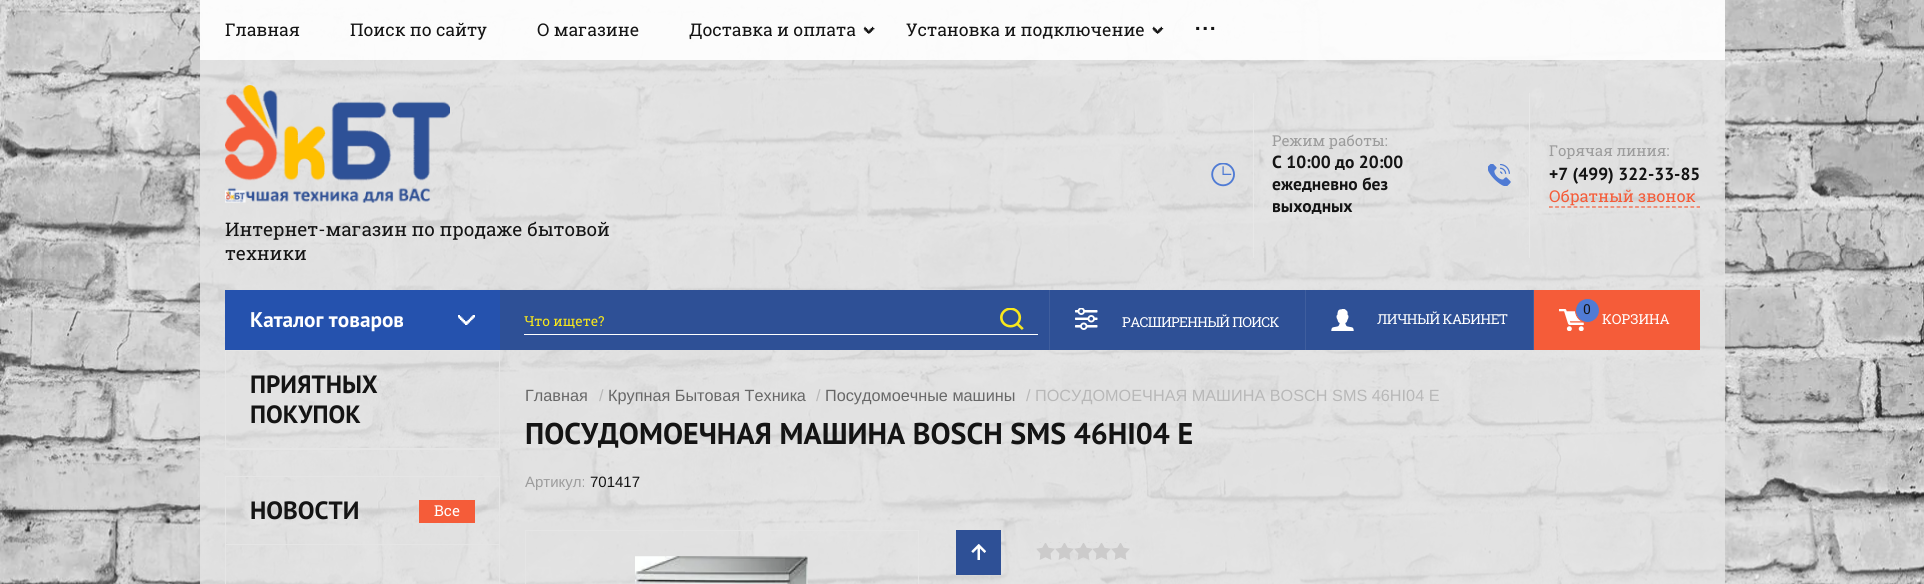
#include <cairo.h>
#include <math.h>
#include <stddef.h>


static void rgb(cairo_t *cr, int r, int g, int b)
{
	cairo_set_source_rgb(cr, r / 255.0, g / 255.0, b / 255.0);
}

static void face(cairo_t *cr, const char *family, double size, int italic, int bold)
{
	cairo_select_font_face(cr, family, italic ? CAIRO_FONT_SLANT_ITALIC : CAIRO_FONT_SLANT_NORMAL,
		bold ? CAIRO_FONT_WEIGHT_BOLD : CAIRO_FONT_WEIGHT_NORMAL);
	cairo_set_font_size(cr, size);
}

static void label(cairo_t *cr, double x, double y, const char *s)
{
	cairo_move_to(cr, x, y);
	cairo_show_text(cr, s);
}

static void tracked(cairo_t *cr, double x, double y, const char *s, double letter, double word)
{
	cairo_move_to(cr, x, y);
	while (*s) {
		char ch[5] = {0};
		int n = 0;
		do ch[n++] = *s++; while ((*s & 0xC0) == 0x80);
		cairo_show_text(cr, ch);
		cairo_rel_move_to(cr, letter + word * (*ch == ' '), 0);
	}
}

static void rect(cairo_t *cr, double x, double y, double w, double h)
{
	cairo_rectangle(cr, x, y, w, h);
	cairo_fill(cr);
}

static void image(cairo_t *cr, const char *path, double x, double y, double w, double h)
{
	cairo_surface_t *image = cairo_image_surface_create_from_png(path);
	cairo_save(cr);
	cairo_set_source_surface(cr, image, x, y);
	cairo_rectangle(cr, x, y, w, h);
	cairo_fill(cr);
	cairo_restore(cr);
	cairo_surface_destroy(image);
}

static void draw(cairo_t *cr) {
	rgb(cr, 255, 255, 255);
	cairo_paint(cr);
	image(cr, "image0.png", 0, 0, 1924, 584);
	cairo_set_source_rgba(cr, 0.89, 0.89, 0.89, 0.87);
	rect(cr, 200, 0, 1525, 584);
	cairo_set_source_rgba(cr, 1, 1, 1, 0.89);
	rect(cr, 200, 0, 1525, 60);
	face(cr, "Roboto Slab", 17.5, 0, 0);
	rgb(cr, 20, 20, 20);
	label(cr, 225, 36, "Главная");
	label(cr, 350, 36, "Поиск по сайту");
	label(cr, 537, 36, "О магазине");
	label(cr, 689, 36, "Доставка и оплата");
	image(cr, "image1.png", 863, 26, 12, 8);
	label(cr, 906, 36, "Установка и подключение");
	image(cr, "image2.png", 1152, 26, 12, 8);
	face(cr, "Roboto Slab", 31, 0, 0);
	label(cr, 1194, 30, "...");
	rgb(cr, 231, 231, 231);
	rect(cr, 1253, 93, 1, 165);
	face(cr, "Roboto Slab", 15, 0, 0);
	rgb(cr, 156, 156, 156);
	label(cr, 1272, 146, "Режим работы:");
	image(cr, "image3.png", 1211, 163, 24, 24);
	face(cr, "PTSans", 17.5, 0, 1);
	rgb(cr, 20, 20, 20);
	label(cr, 1272, 168, "C 10:00 до 20:00");
	label(cr, 1272, 190, "ежедневно без");
	label(cr, 1272, 212, "выходных");
	rgb(cr, 231, 231, 231);
	rect(cr, 1529, 93, 1, 165);
	face(cr, "Roboto Slab", 15, 0, 0);
	rgb(cr, 156, 156, 156);
	label(cr, 1549, 156, "Горячая линия:");
	image(cr, "image4.png", 1488, 164, 23, 22);
	face(cr, "PTSans", 17.5, 0, 1);
	rgb(cr, 20, 20, 20);
	label(cr, 1549, 180, "+7 (499) 322-33-85");
	cairo_new_path(cr);
	cairo_move_to(cr, 1549, 207);
	cairo_line_to(cr, 1700, 207);
	rgb(cr, 245, 92, 57);
	cairo_set_line_width(cr, 1.2);
	cairo_set_dash(cr, (double[]){3.75, 2.4}, 2, 0);
	cairo_stroke(cr);
	face(cr, "Roboto Slab", 16.25, 0, 0);
	label(cr, 1549, 202, "Обратный звонок");
	image(cr, "image5.png", 225, 85, 225, 118);
	face(cr, "Roboto Slab", 18.75, 0, 0);
	rgb(cr, 20, 20, 20);
	label(cr, 225, 236, "Интернет-магазин по продаже бытовой");
	label(cr, 225, 260, "техники");
	rgb(cr, 46, 80, 150);
	rect(cr, 500, 290, 1033, 60);
	rgb(cr, 37, 82, 174);
	rect(cr, 225, 290, 275, 60);
	face(cr, "PTSans", 21.25, 0, 1);
	rgb(cr, 255, 255, 255);
	label(cr, 250, 327, "Каталог товаров");
	image(cr, "image6.png", 458, 315, 17, 10);
	rect(cr, 524, 334, 514, 1);
	face(cr, "Roboto Slab", 13.75, 0, 0);
	rgb(cr, 248, 231, 28);
	label(cr, 524, 326, "Что ищете?");
	image(cr, "image7.png", 1000, 308, 24, 22);
	image(cr, "image8.png", 1075, 308, 23, 22);
	rgb(cr, 63, 94, 158);
	rect(cr, 1049, 290, 1, 60);
	rgb(cr, 255, 255, 255);
	tracked(cr, 1122, 327, "РАСШИРЕННЫЙ ПОИСК", -0.6, 0);
	image(cr, "image9.png", 1331, 309, 23, 22);
	rgb(cr, 63, 94, 158);
	rect(cr, 1533, 290, 1, 60);
	rect(cr, 1305, 290, 1, 60);
	rgb(cr, 255, 255, 255);
	tracked(cr, 1377, 324, "ЛИЧНЫЙ КАБИНЕТ", -0.4, 0);
	rgb(cr, 245, 92, 57);
	rect(cr, 1534, 290, 166, 60);
	image(cr, "image10.png", 1559, 309, 25, 22);
	rgb(cr, 80, 123, 212);
	cairo_arc(cr, 1587.5, 310.5, 12, 0, 2 * M_PI);
	cairo_fill_preserve(cr);
	rgb(cr, 245, 92, 57);
	cairo_set_line_width(cr, 1);
	cairo_set_dash(cr, NULL, 0, 0);
	cairo_stroke(cr);
	rgb(cr, 20, 20, 20);
	label(cr, 1583, 314, "0");
	rgb(cr, 255, 255, 255);
	label(cr, 1602, 324, "КОРЗИНА");
	cairo_rectangle(cr, 225.5, 350.5, 274, 99);
	rgb(cr, 229, 229, 229);
	cairo_stroke(cr);
	rect(cr, 226, 448, 273, 1);
	face(cr, "PTSans", 25, 0, 1);
	rgb(cr, 20, 20, 20);
	label(cr, 250, 393, "ПРИЯТНЫХ");
	label(cr, 250, 423, "ПОКУПОК");
	cairo_rectangle(cr, 225.5, 476.5, 274, 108);
	rgb(cr, 229, 229, 229);
	cairo_stroke(cr);
	rect(cr, 226, 544, 273, 1);
	rgb(cr, 20, 20, 20);
	label(cr, 250, 519, "НОВОСТИ");
	rgb(cr, 245, 92, 57);
	rect(cr, 419, 500, 56, 23);
	face(cr, "Roboto Slab", 15, 0, 0);
	rgb(cr, 255, 255, 255);
	label(cr, 434, 516, "Все");
	face(cr, "Liberation Sans", 16.25, 0, 0);
	rgb(cr, 103, 103, 103);
	label(cr, 525, 401, "Главная");
	rgb(cr, 184, 184, 184);
	label(cr, 599, 401, "/");
	rgb(cr, 103, 103, 103);
	label(cr, 608, 401, "Крупная Бытовая Техника");
	rgb(cr, 184, 184, 184);
	label(cr, 816, 401, "/");
	rgb(cr, 103, 103, 103);
	label(cr, 825, 401, "Посудомоечные машины");
	rgb(cr, 184, 184, 184);
	label(cr, 1026, 401, "/ ПОСУДОМОЕЧНАЯ МАШИНА BOSCH SMS 46HI04 E");
	face(cr, "PTSans", 30, 0, 1);
	rgb(cr, 20, 20, 20);
	label(cr, 525, 444, "ПОСУДОМОЕЧНАЯ МАШИНА BOSCH SMS 46HI04 E");
	face(cr, "Liberation Sans", 15, 0, 0);
	rgb(cr, 156, 156, 156);
	label(cr, 525, 487, "Артикул:");
	rgb(cr, 20, 20, 20);
	label(cr, 590, 487, "701417");
	cairo_rectangle(cr, 525.5, 530.5, 393, 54);
	rgb(cr, 229, 229, 229);
	cairo_stroke(cr);
	image(cr, "image11.png", 635, 556, 173, 28);
	rgb(cr, 46, 80, 150);
	rect(cr, 956, 530, 45, 45);
	image(cr, "image12.png", 971, 544, 15, 16);
	image(cr, "image13.png", 1036, 542, 94, 18);
}

int main(void) {
	cairo_surface_t *surface = cairo_image_surface_create(CAIRO_FORMAT_RGB24, 1924, 584);
	cairo_t *cr = cairo_create(surface);
	cairo_font_options_t *options = cairo_font_options_create();
	cairo_font_options_set_hint_metrics(options, CAIRO_HINT_METRICS_OFF);
	cairo_font_options_set_hint_style(options, CAIRO_HINT_STYLE_NONE);
	cairo_set_font_options(cr, options);
	cairo_set_miter_limit(cr, 4);
	draw(cr);
	cairo_surface_write_to_png(surface, "render.png");
	cairo_font_options_destroy(options);
	cairo_destroy(cr);
	cairo_surface_destroy(surface);
	return 0;
}
